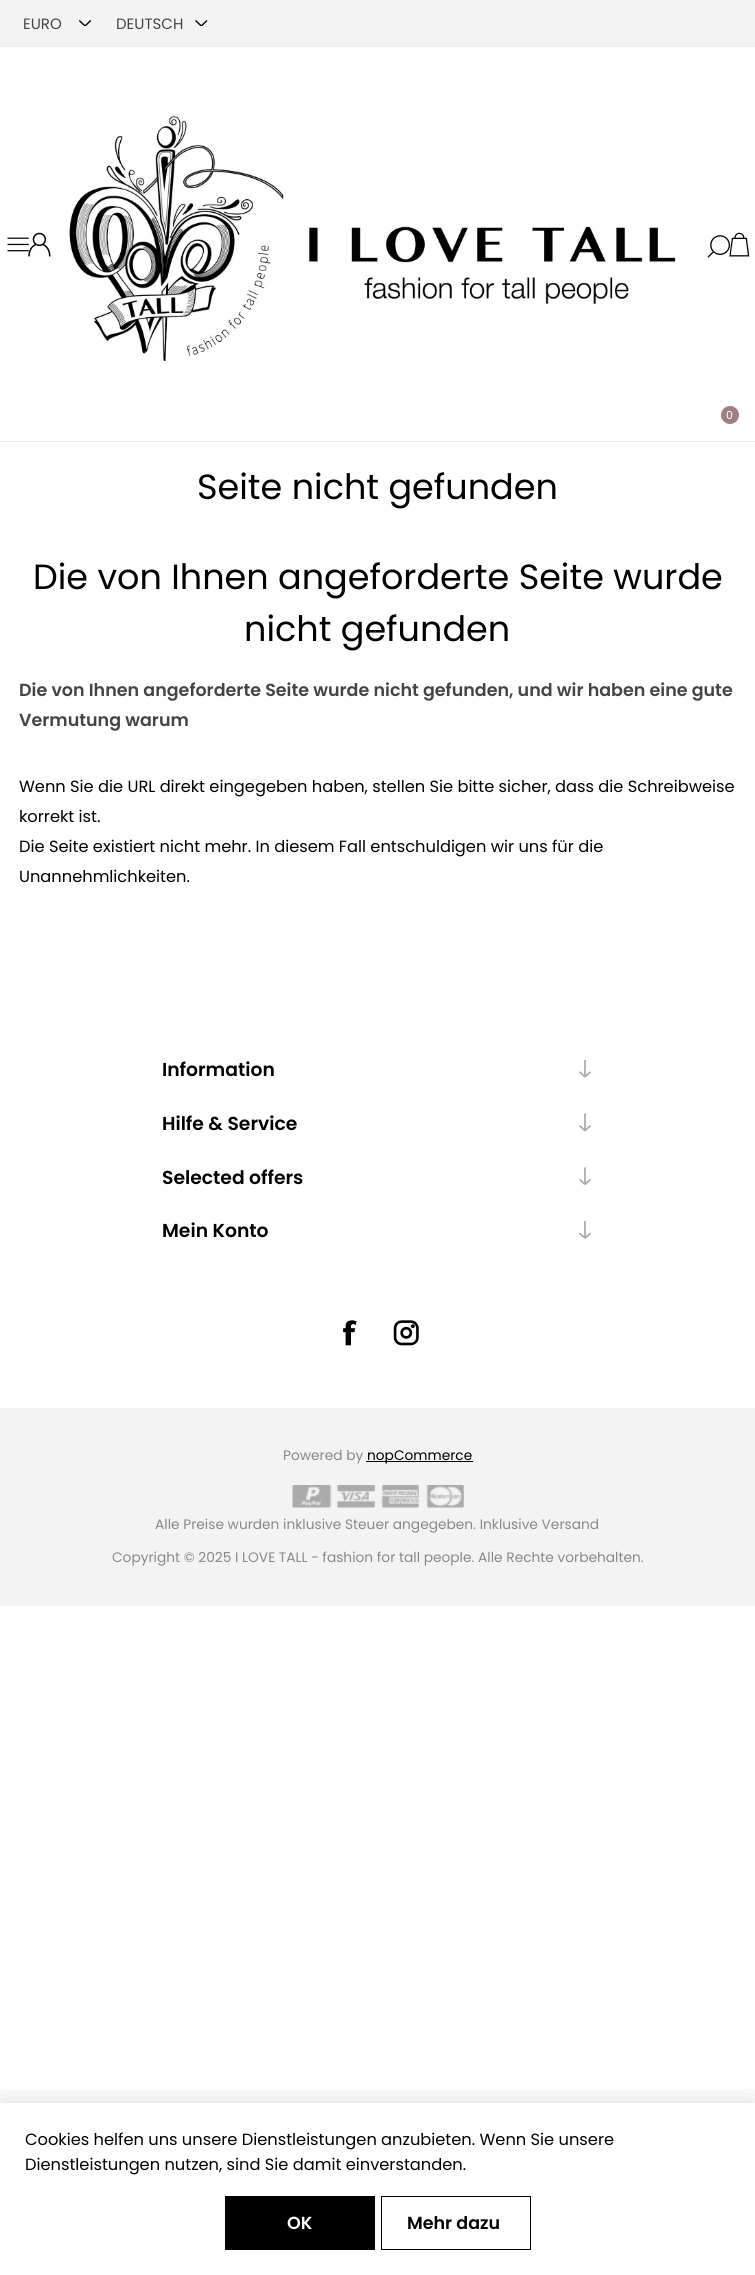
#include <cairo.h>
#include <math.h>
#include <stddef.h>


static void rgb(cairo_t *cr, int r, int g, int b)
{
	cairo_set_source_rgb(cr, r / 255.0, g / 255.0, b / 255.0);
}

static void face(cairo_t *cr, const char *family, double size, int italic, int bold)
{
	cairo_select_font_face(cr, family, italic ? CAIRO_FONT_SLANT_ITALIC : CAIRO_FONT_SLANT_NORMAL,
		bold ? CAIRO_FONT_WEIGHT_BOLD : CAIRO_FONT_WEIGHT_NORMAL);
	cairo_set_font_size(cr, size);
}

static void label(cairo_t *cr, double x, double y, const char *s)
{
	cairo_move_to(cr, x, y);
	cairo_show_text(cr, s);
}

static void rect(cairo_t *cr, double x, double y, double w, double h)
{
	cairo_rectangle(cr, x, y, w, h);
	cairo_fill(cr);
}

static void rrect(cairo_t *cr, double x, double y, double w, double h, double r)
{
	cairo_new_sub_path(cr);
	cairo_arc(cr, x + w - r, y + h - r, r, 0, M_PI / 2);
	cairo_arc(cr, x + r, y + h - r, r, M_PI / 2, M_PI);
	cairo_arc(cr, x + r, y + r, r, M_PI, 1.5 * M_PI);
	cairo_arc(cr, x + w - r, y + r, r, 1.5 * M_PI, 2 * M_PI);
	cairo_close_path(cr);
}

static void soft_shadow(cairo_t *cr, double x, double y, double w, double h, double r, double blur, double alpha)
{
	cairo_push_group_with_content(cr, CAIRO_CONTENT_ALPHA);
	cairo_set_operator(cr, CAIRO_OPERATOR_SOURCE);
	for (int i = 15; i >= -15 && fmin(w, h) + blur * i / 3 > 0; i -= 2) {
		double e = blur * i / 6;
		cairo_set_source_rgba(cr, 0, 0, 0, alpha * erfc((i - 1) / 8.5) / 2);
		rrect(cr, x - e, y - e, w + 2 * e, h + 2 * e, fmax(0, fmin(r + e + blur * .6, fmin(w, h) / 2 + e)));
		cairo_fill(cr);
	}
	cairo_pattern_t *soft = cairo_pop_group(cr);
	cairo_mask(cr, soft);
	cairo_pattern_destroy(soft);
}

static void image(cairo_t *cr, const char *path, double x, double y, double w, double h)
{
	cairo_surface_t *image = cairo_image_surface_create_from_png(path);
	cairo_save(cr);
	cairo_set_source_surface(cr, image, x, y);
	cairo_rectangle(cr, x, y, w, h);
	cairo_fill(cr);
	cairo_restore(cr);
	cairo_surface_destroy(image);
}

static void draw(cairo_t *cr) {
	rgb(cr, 255, 255, 255);
	cairo_paint(cr);
	rgb(cr, 243, 243, 243);
	rect(cr, 0, 0, 755, 46);
	image(cr, "image0.png", 79, 20, 12, 6);
	face(cr, "Poppins", 15, 0, 0);
	rgb(cr, 68, 68, 68);
	label(cr, 23, 29, "EURO");
	image(cr, "image1.png", 195, 20, 13, 6);
	label(cr, 116, 29, "DEUTSCH");
	rgb(cr, 238, 238, 238);
	rect(cr, 0, 46, 755, 1);
	rect(cr, 0, 441, 755, 1);
	image(cr, "image2.png", 7, 237, 22, 15);
	image(cr, "image3.png", 28, 232, 23, 25);
	image(cr, "image4.png", 69, 115, 607, 247);
	image(cr, "image5.png", 707, 235, 23, 23);
	image(cr, "image6.png", 729, 232, 21, 25);
	rgb(cr, 159, 127, 127);
	cairo_arc(cr, 730, 415, 9, 0, 2 * M_PI);
	cairo_fill(cr);
	face(cr, "Poppins", 11, 0, 0);
	rgb(cr, 255, 255, 255);
	label(cr, 726, 419, "0");
	face(cr, "Poppins", 35, 0, 0);
	rgb(cr, 0, 0, 0);
	label(cr, 197, 499, "Seite nicht gefunden");
	label(cr, 33, 589, "Die von Ihnen angeforderte Seite wurde");
	label(cr, 244, 641, "nicht gefunden");
	face(cr, "Poppins SemiBold", 17.5, 0, 0);
	rgb(cr, 68, 68, 68);
	label(cr, 19, 696, "Die von Ihnen angeforderte Seite wurde nicht gefunden, und wir haben eine gute");
	label(cr, 19, 726, "Vermutung warum");
	face(cr, "Poppins", 16.25, 0, 0);
	rgb(cr, 0, 0, 0);
	label(cr, 19, 792, "Wenn Sie die URL direkt eingegeben haben, stellen Sie bitte sicher, dass die Schreibweise");
	label(cr, 19, 822, "korrekt ist.");
	label(cr, 19, 852, "Die Seite existiert nicht mehr. In diesem Fall entschuldigen wir uns für die");
	label(cr, 19, 882, "Unannehmlichkeiten.");
	face(cr, "Poppins SemiBold", 18.75, 0, 0);
	label(cr, 162, 1076, "Information");
	image(cr, "image7.png", 579, 1059, 12, 19);
	label(cr, 162, 1130, "Hilfe & Service");
	image(cr, "image8.png", 579, 1113, 12, 19);
	label(cr, 162, 1184, "Selected offers");
	image(cr, "image9.png", 579, 1167, 12, 18);
	label(cr, 162, 1237, "Mein Konto");
	image(cr, "image10.png", 579, 1221, 12, 18);
	image(cr, "image11.png", 343, 1320, 14, 26);
	image(cr, "image12.png", 393, 1320, 26, 26);
	rgb(cr, 243, 243, 243);
	rect(cr, 0, 1408, 755, 198);
	face(cr, "Poppins", 13.75, 0, 0);
	rgb(cr, 136, 136, 136);
	label(cr, 283, 1460, "Powered by");
	rgb(cr, 0, 0, 0);
	rect(cr, 366, 1461, 107, 1);
	label(cr, 367, 1460, "nopCommerce");
	image(cr, "image13.png", 292, 1485, 172, 23);
	rgb(cr, 136, 136, 136);
	label(cr, 155, 1529, "Alle Preise wurden inklusive Steuer angegeben. Inklusive Versand");
	label(cr, 112, 1562, "Copyright © 2025 I LOVE TALL - fashion for tall people. Alle Rechte vorbehalten.");
	cairo_save(cr);
	cairo_rectangle(cr, 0, 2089, 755, 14);
	cairo_clip(cr);
	rgb(cr, 0, 0, 0);
	soft_shadow(cr, 0, 2103, 755, 172, 0, 12.5, 0.15);
	cairo_restore(cr);
	face(cr, "Poppins", 16.25, 0, 0);
	rgb(cr, 0, 0, 0);
	label(cr, 25, 2145, "Cookies helfen uns unsere Dienstleistungen anzubieten. Wenn Sie unsere");
	label(cr, 25, 2170, "Dienstleistungen nutzen, sind Sie damit einverstanden.");
	rect(cr, 225, 2196, 150, 54);
	face(cr, "Poppins SemiBold", 17.5, 0, 0);
	rgb(cr, 255, 255, 255);
	label(cr, 287, 2229, "OK");
	cairo_rectangle(cr, 381.5, 2196.5, 149, 53);
	rgb(cr, 0, 0, 0);
	cairo_set_line_width(cr, 1);
	cairo_stroke(cr);
	label(cr, 407, 2229, "Mehr dazu");
}

int main(void) {
	cairo_surface_t *surface = cairo_image_surface_create(CAIRO_FORMAT_RGB24, 755, 2275);
	cairo_t *cr = cairo_create(surface);
	cairo_font_options_t *options = cairo_font_options_create();
	cairo_font_options_set_hint_metrics(options, CAIRO_HINT_METRICS_OFF);
	cairo_font_options_set_hint_style(options, CAIRO_HINT_STYLE_NONE);
	cairo_set_font_options(cr, options);
	cairo_set_miter_limit(cr, 4);
	draw(cr);
	cairo_surface_write_to_png(surface, "render.png");
	cairo_font_options_destroy(options);
	cairo_destroy(cr);
	cairo_surface_destroy(surface);
	return 0;
}
